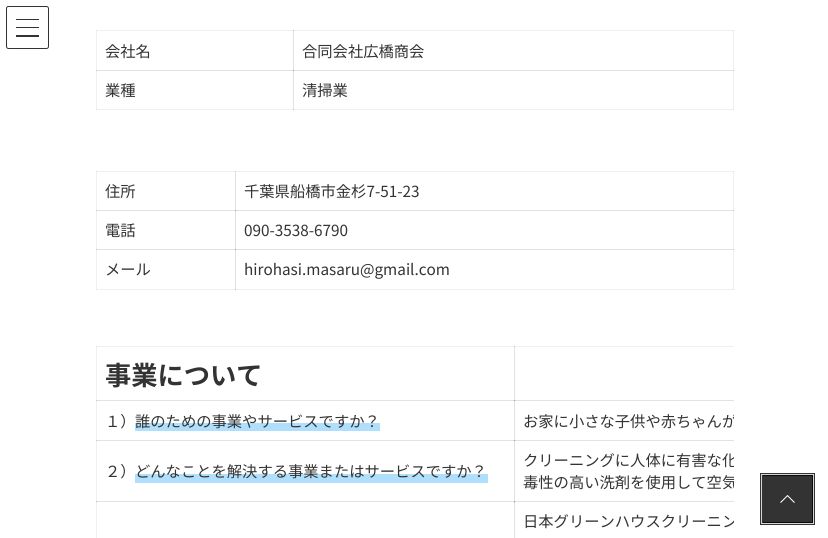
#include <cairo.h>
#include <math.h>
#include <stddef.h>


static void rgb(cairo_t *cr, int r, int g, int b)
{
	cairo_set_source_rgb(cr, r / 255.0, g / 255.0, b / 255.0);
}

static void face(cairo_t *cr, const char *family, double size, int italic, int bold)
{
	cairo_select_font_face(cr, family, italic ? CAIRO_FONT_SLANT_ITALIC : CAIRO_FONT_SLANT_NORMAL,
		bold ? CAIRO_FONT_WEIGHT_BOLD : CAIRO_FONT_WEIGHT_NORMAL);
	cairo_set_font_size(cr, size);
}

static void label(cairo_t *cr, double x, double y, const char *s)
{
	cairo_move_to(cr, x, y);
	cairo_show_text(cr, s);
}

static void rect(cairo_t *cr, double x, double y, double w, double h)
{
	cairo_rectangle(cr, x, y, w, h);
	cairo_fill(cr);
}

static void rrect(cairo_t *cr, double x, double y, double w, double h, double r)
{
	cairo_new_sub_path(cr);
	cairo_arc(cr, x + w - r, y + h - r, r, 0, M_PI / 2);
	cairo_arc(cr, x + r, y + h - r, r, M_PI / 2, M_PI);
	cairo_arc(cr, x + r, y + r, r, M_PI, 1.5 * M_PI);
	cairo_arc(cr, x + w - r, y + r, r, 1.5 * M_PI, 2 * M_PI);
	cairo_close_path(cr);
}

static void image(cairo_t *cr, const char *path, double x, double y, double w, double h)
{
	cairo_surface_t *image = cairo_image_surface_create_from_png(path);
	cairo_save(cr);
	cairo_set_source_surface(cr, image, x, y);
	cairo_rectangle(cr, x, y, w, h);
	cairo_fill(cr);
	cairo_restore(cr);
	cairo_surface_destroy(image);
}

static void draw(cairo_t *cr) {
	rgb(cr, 255, 255, 255);
	cairo_paint(cr);
	rgb(cr, 240, 240, 240);
	rect(cr, 96, 346, 1, 192);
	rect(cr, 96, 346, 419, 1);
	rgb(cr, 226, 226, 226);
	rect(cr, 96, 346, 1, 1);
	rect(cr, 514, 346, 1, 55);
	rect(cr, 96, 400, 419, 1);
	rgb(cr, 199, 199, 199);
	rect(cr, 96, 400, 1, 1);
	rgb(cr, 226, 226, 226);
	rect(cr, 514, 400, 1, 41);
	rect(cr, 96, 440, 419, 1);
	rgb(cr, 199, 199, 199);
	rect(cr, 96, 440, 1, 1);
	rgb(cr, 226, 226, 226);
	rect(cr, 514, 440, 1, 63);
	rect(cr, 96, 501, 1, 2);
	rect(cr, 96, 501, 419, 1);
	rgb(cr, 199, 199, 199);
	rect(cr, 96, 501, 1, 1);
	rgb(cr, 226, 226, 226);
	rect(cr, 514, 501, 1, 37);
	rgb(cr, 199, 199, 199);
	rect(cr, 514, 501, 1, 2);
	rgb(cr, 240, 240, 240);
	rect(cr, 96, 171, 1, 119);
	rect(cr, 96, 171, 140, 1);
	rgb(cr, 226, 226, 226);
	rect(cr, 96, 171, 1, 1);
	rect(cr, 235, 171, 1, 40);
	rgb(cr, 240, 240, 240);
	rect(cr, 733, 171, 1, 79);
	rgb(cr, 226, 226, 226);
	rect(cr, 96, 210, 140, 1);
	rgb(cr, 199, 199, 199);
	rect(cr, 96, 210, 1, 1);
	rgb(cr, 226, 226, 226);
	rect(cr, 235, 210, 1, 40);
	rgb(cr, 240, 240, 240);
	rect(cr, 96, 289, 140, 1);
	rgb(cr, 226, 226, 226);
	rect(cr, 96, 289, 1, 1);
	rect(cr, 96, 249, 140, 1);
	rgb(cr, 199, 199, 199);
	rect(cr, 96, 249, 1, 1);
	rgb(cr, 226, 226, 226);
	rect(cr, 235, 249, 1, 41);
	rgb(cr, 240, 240, 240);
	rect(cr, 235, 289, 499, 1);
	rgb(cr, 199, 199, 199);
	rect(cr, 235, 289, 1, 1);
	rgb(cr, 240, 240, 240);
	rect(cr, 733, 249, 1, 41);
	rgb(cr, 226, 226, 226);
	rect(cr, 733, 289, 1, 1);
	rgb(cr, 240, 240, 240);
	rect(cr, 96, 30, 1, 80);
	rect(cr, 96, 30, 198, 1);
	rgb(cr, 226, 226, 226);
	rect(cr, 96, 30, 1, 1);
	rect(cr, 293, 30, 1, 41);
	rgb(cr, 240, 240, 240);
	rect(cr, 733, 30, 1, 41);
	rect(cr, 96, 109, 198, 1);
	rgb(cr, 226, 226, 226);
	rect(cr, 96, 109, 1, 1);
	rect(cr, 96, 70, 198, 1);
	rgb(cr, 199, 199, 199);
	rect(cr, 96, 70, 1, 1);
	rgb(cr, 226, 226, 226);
	rect(cr, 293, 70, 1, 40);
	rgb(cr, 240, 240, 240);
	rect(cr, 293, 109, 441, 1);
	rgb(cr, 199, 199, 199);
	rect(cr, 293, 109, 1, 1);
	rgb(cr, 240, 240, 240);
	rect(cr, 733, 70, 1, 40);
	rgb(cr, 226, 226, 226);
	rect(cr, 733, 109, 1, 1);
	rgb(cr, 51, 51, 51);
	rect(cr, 16, 19, 23, 1);
	rect(cr, 16, 27, 23, 1);
	rect(cr, 16, 35, 23, 2);
	rrect(cr, 6.5, 6.5, 42, 42, 2);
	cairo_set_line_width(cr, 1);
	cairo_stroke(cr);
	face(cr, "Noto Sans JP", 15.3, 0, 0);
	label(cr, 105, 57, "会社名");
	rgb(cr, 240, 240, 240);
	rect(cr, 293, 30, 441, 1);
	rgb(cr, 199, 199, 199);
	rect(cr, 293, 30, 1, 1);
	rgb(cr, 226, 226, 226);
	rect(cr, 733, 30, 1, 1);
	rgb(cr, 51, 51, 51);
	label(cr, 302, 57, "合同会社広橋商会");
	label(cr, 105, 96, "業種");
	rgb(cr, 226, 226, 226);
	rect(cr, 293, 70, 441, 1);
	rgb(cr, 155, 155, 155);
	rect(cr, 293, 70, 1, 1);
	rgb(cr, 199, 199, 199);
	rect(cr, 733, 70, 1, 1);
	rgb(cr, 51, 51, 51);
	label(cr, 302, 96, "清掃業");
	label(cr, 105, 197, "住所");
	rgb(cr, 240, 240, 240);
	rect(cr, 235, 171, 499, 1);
	rgb(cr, 199, 199, 199);
	rect(cr, 235, 171, 1, 1);
	rgb(cr, 226, 226, 226);
	rect(cr, 733, 171, 1, 1);
	rgb(cr, 51, 51, 51);
	label(cr, 244, 197, "千葉県船橋市金杉7-51-23");
	label(cr, 105, 236, "電話");
	rgb(cr, 226, 226, 226);
	rect(cr, 235, 210, 499, 1);
	rgb(cr, 155, 155, 155);
	rect(cr, 235, 210, 1, 1);
	rgb(cr, 199, 199, 199);
	rect(cr, 733, 210, 1, 1);
	rgb(cr, 51, 51, 51);
	label(cr, 244, 236, "090-3538-6790");
	label(cr, 105, 275, "メール");
	rgb(cr, 226, 226, 226);
	rect(cr, 235, 249, 499, 1);
	rgb(cr, 155, 155, 155);
	rect(cr, 235, 249, 1, 1);
	rgb(cr, 199, 199, 199);
	rect(cr, 733, 249, 1, 1);
	rgb(cr, 51, 51, 51);
	label(cr, 244, 275, "hirohasi.masaru@gmail.com");
	rgb(cr, 240, 240, 240);
	rect(cr, 514, 346, 220, 1);
	rgb(cr, 199, 199, 199);
	rect(cr, 514, 346, 1, 1);
	face(cr, "Noto Sans JP", 26.25, 0, 1);
	rgb(cr, 51, 51, 51);
	label(cr, 105, 385, "事業について");
	face(cr, "Noto Sans JP", 15.3, 0, 0);
	label(cr, 105, 427, "１）");
	rgb(cr, 176, 223, 253);
	rect(cr, 135, 423, 245, 8);
	rgb(cr, 51, 51, 51);
	label(cr, 135, 427, "誰のための事業やサービスですか？");
	rgb(cr, 226, 226, 226);
	rect(cr, 514, 400, 220, 1);
	rgb(cr, 155, 155, 155);
	rect(cr, 514, 400, 1, 1);
	cairo_save(cr);
	cairo_rectangle(cr, 96, 346, 638, 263);
	cairo_clip(cr);
	rgb(cr, 51, 51, 51);
	label(cr, 523, 427, "お家に小さな子供や赤ちゃんが");
	cairo_restore(cr);
	rgb(cr, 51, 51, 51);
	label(cr, 105, 477, "２）");
	rgb(cr, 176, 223, 253);
	rect(cr, 135, 474, 353, 9);
	rgb(cr, 51, 51, 51);
	label(cr, 135, 477, "どんなことを解決する事業またはサービスですか？");
	rgb(cr, 226, 226, 226);
	rect(cr, 514, 440, 220, 1);
	rgb(cr, 155, 155, 155);
	rect(cr, 514, 440, 1, 1);
	cairo_save(cr);
	cairo_rectangle(cr, 96, 346, 638, 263);
	cairo_clip(cr);
	rgb(cr, 51, 51, 51);
	label(cr, 523, 466, "クリーニングに人体に有害な化");
	label(cr, 523, 488, "毒性の高い洗剤を使用して空気");
	cairo_restore(cr);
	rgb(cr, 226, 226, 226);
	rect(cr, 514, 501, 220, 1);
	rgb(cr, 155, 155, 155);
	rect(cr, 514, 501, 1, 1);
	cairo_save(cr);
	cairo_rectangle(cr, 96, 346, 638, 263);
	cairo_clip(cr);
	rgb(cr, 51, 51, 51);
	label(cr, 523, 527, "日本グリーンハウスクリーニン");
	cairo_restore(cr);
	cairo_rectangle(cr, 761.5, 474.5, 52, 49);
	rgb(cr, 51, 51, 51);
	cairo_set_line_width(cr, 3);
	cairo_stroke(cr);
	cairo_rectangle(cr, 761.5, 474.5, 52, 49);
	rgb(cr, 214, 214, 214);
	cairo_set_line_width(cr, 1);
	cairo_stroke(cr);
	cairo_set_source_rgba(cr, 0, 0, 0, 0.8);
	rect(cr, 763, 475, 50, 48);
	image(cr, "image0.png", 780, 495, 15, 8);
}

int main(void) {
	cairo_surface_t *surface = cairo_image_surface_create(CAIRO_FORMAT_RGB24, 828, 538);
	cairo_t *cr = cairo_create(surface);
	cairo_font_options_t *options = cairo_font_options_create();
	cairo_font_options_set_hint_metrics(options, CAIRO_HINT_METRICS_OFF);
	cairo_font_options_set_hint_style(options, CAIRO_HINT_STYLE_NONE);
	cairo_set_font_options(cr, options);
	cairo_set_miter_limit(cr, 4);
	draw(cr);
	cairo_surface_write_to_png(surface, "render.png");
	cairo_font_options_destroy(options);
	cairo_destroy(cr);
	cairo_surface_destroy(surface);
	return 0;
}
